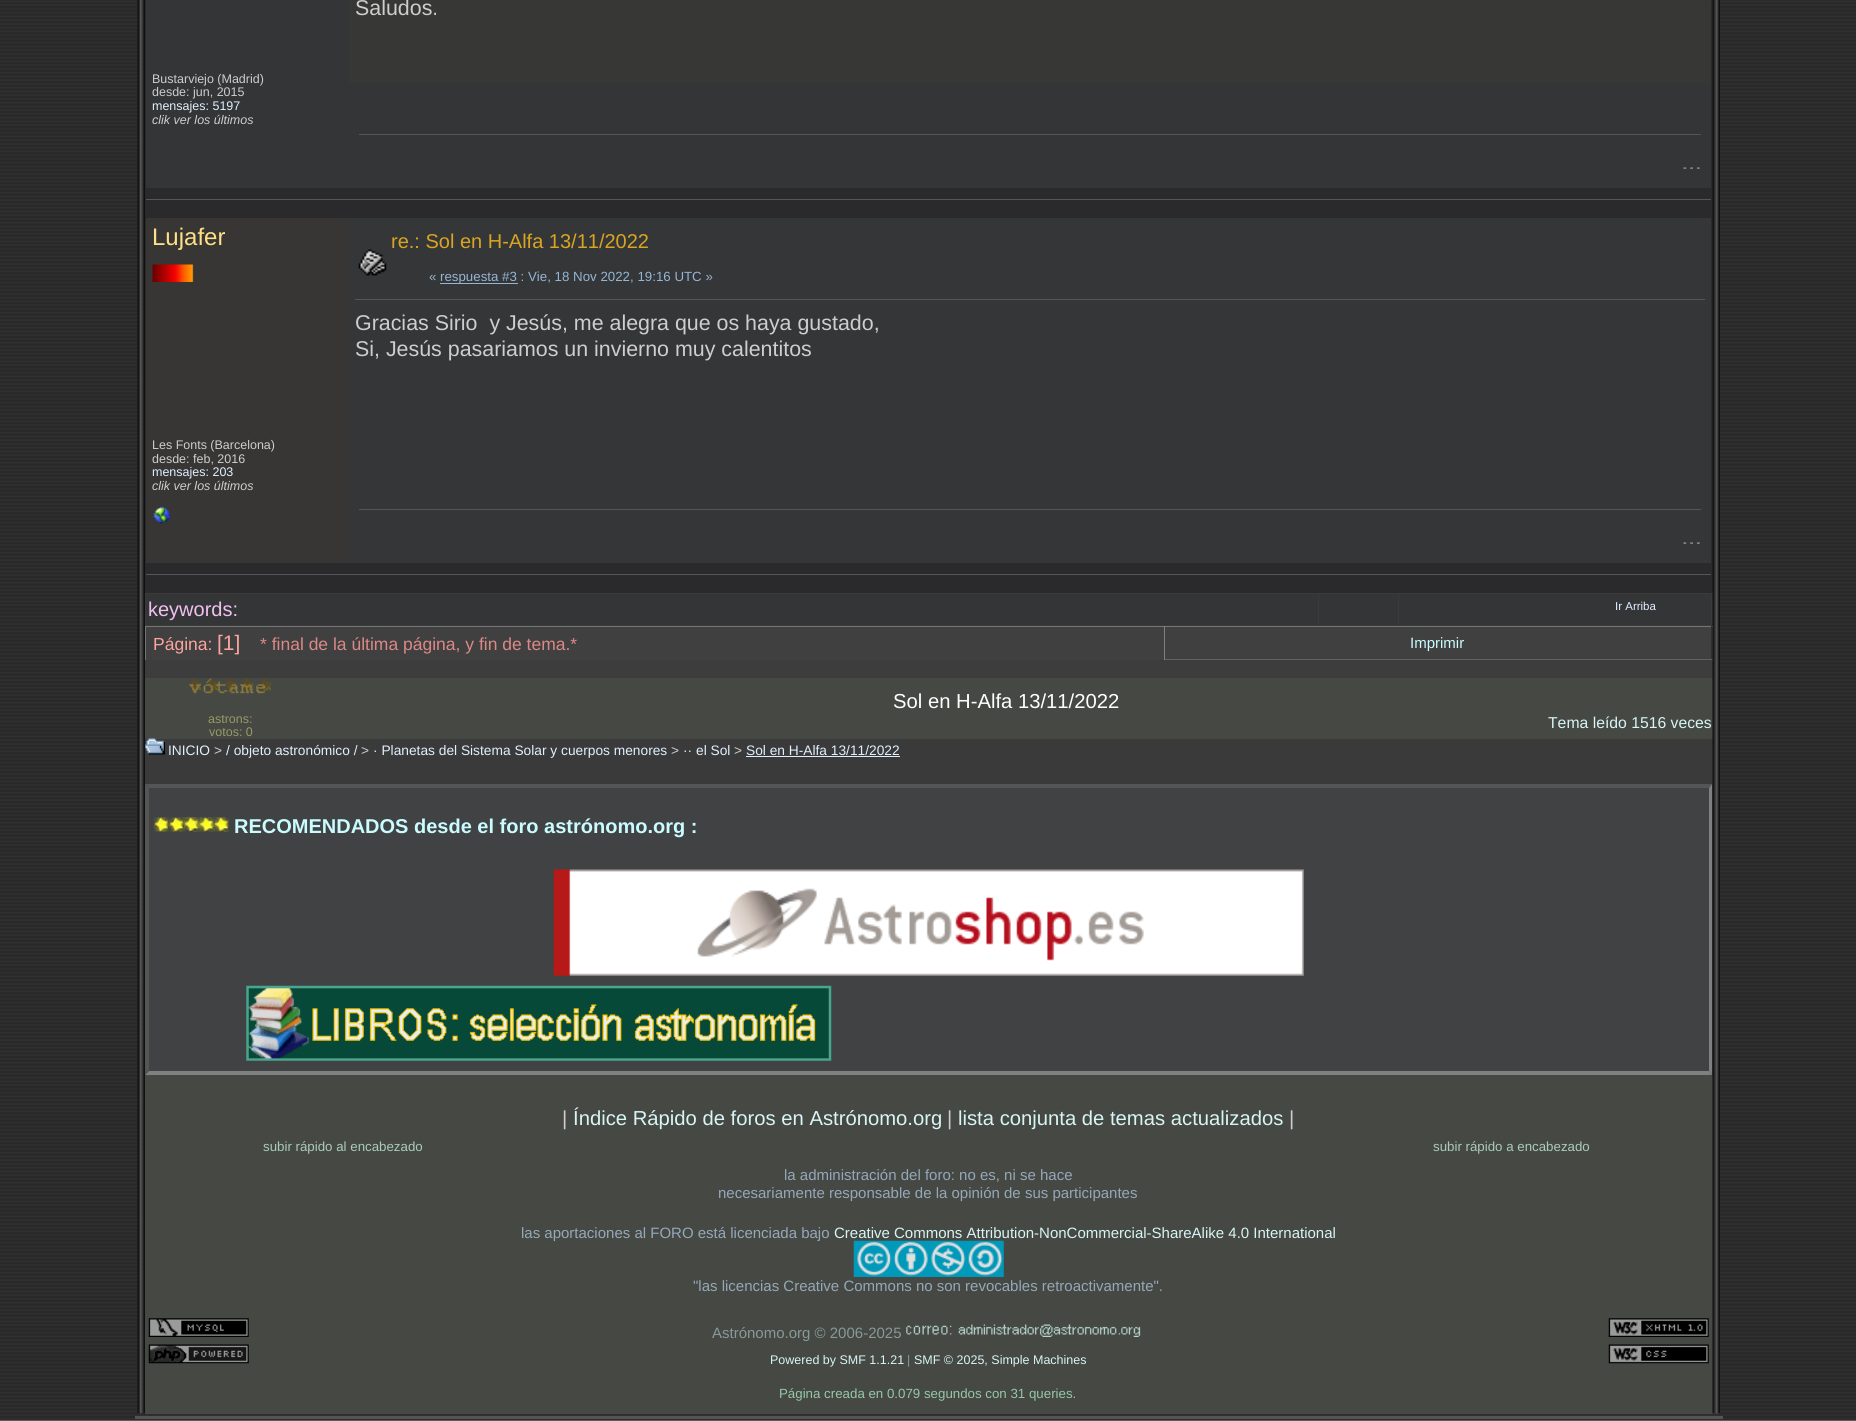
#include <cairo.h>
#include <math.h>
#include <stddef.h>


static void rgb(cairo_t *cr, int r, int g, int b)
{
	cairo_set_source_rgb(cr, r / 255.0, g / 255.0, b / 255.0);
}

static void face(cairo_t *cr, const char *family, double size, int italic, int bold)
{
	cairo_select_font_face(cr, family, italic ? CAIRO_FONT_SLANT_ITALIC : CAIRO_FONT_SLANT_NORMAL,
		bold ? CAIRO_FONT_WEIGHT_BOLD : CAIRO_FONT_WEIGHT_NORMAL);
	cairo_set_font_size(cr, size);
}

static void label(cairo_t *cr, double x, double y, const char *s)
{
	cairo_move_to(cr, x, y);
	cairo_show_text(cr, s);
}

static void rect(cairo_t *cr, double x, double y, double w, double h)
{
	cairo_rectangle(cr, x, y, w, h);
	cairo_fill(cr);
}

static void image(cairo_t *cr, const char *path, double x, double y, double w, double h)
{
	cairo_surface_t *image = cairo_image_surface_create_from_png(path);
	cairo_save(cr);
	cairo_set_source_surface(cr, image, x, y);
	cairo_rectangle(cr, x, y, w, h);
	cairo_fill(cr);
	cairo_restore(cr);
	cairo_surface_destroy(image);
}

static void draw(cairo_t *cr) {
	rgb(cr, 255, 255, 255);
	cairo_paint(cr);
	image(cr, "image0.png", 0, 0, 1856, 1421);
	rgb(cr, 84, 84, 84);
	rect(cr, 135, 1416, 1588, 3);
	image(cr, "image1.png", 137, 0, 8, 1414);
	rgb(cr, 58, 58, 58);
	rect(cr, 145, 593, 1575, 821);
	rgb(cr, 42, 42, 45);
	rect(cr, 145, 1, 1568, 592);
	rgb(cr, 52, 53, 54);
	rect(cr, 146, 0, 1565, 188);
	rgb(cr, 55, 55, 54);
	rect(cr, 349, 0, 1362, 83);
	face(cr, "Liberation Sans", 21.4, 0, 0);
	rgb(cr, 207, 205, 205);
	label(cr, 355, 15, "Saludos.");
	face(cr, "Liberation Sans", 12.5, 0, 0);
	label(cr, 152, 83, "Bustarviejo (Madrid)");
	label(cr, 152, 96, "desde: jun, 2015");
	rgb(cr, 224, 240, 255);
	label(cr, 152, 110, "mensajes: 5197");
	face(cr, "Liberation Sans", 12.5, 1, 0);
	rgb(cr, 207, 205, 205);
	label(cr, 152, 124, "clik ver los últimos");
	rgb(cr, 86, 86, 86);
	rect(cr, 359, 134, 1342, 1);
	face(cr, "Liberation Sans", 11, 0, 0);
	rgb(cr, 207, 205, 205);
	label(cr, 1683, 171, "- - -");
	rgb(cr, 86, 86, 86);
	rect(cr, 146, 199, 1565, 1);
	rgb(cr, 55, 54, 53);
	rect(cr, 146, 218, 203, 345);
	face(cr, "Liberation Sans", 24, 0, 0);
	rgb(cr, 255, 223, 135);
	label(cr, 152, 245, "Lujafer");
	image(cr, "image2.png", 152, 264, 42, 18);
	face(cr, "Liberation Sans", 12.5, 0, 0);
	rgb(cr, 207, 205, 205);
	label(cr, 152, 449, "Les Fonts (Barcelona)");
	label(cr, 152, 463, "desde: feb, 2016");
	rgb(cr, 224, 240, 255);
	label(cr, 152, 476, "mensajes: 203");
	face(cr, "Liberation Sans", 12.5, 1, 0);
	rgb(cr, 207, 205, 205);
	label(cr, 152, 490, "clik ver los últimos");
	image(cr, "image3.png", 153, 506, 18, 18);
	rgb(cr, 52, 54, 56);
	rect(cr, 349, 218, 1362, 226);
	image(cr, "image4.png", 358, 249, 29, 27);
	face(cr, "Liberation Sans", 20, 0, 0);
	rgb(cr, 218, 165, 32);
	label(cr, 391, 248, "re.: Sol en H-Alfa 13/11/2022");
	face(cr, "Liberation Sans", 13.3, 0, 0);
	rgb(cr, 149, 181, 211);
	label(cr, 429, 281, "«");
	rect(cr, 440, 283, 78, 1);
	label(cr, 440, 281, "respuesta #3 : Vie, 18 Nov 2022, 19:16 UTC »");
	rgb(cr, 86, 86, 86);
	rect(cr, 355, 299, 1350, 1);
	face(cr, "Liberation Sans", 21.4, 0, 0);
	rgb(cr, 207, 205, 205);
	label(cr, 355, 330, "Gracias Sirio  y Jesús, me alegra que os haya gustado,");
	label(cr, 355, 356, "Si, Jesús pasariamos un invierno muy calentitos");
	rgb(cr, 53, 54, 55);
	rect(cr, 349, 444, 1362, 119);
	rgb(cr, 86, 86, 86);
	rect(cr, 359, 509, 1342, 1);
	face(cr, "Liberation Sans", 11, 0, 0);
	rgb(cr, 207, 205, 205);
	label(cr, 1683, 546, "- - -");
	rgb(cr, 86, 86, 86);
	rect(cr, 146, 574, 1565, 1);
	rgb(cr, 52, 53, 54);
	rect(cr, 146, 594, 1172, 31);
	face(cr, "Liberation Sans", 20, 0, 0);
	rgb(cr, 240, 192, 240);
	label(cr, 148, 616, "keywords:");
	rgb(cr, 52, 53, 54);
	rect(cr, 1319, 594, 79, 31);
	rect(cr, 1399, 594, 312, 31);
	face(cr, "Liberation Sans", 11.5, 0, 0);
	rgb(cr, 224, 240, 255);
	label(cr, 1615, 610, "Ir Arriba");
	rgb(cr, 64, 64, 64);
	rect(cr, 146, 627, 1018, 33);
	rgb(cr, 117, 117, 117);
	rect(cr, 145, 626, 1568, 1);
	rect(cr, 145, 626, 1, 34);
	face(cr, "Liberation Sans", 17.5, 0, 0);
	rgb(cr, 251, 165, 158);
	label(cr, 153, 650, "Página:");
	face(cr, "Liberation Sans", 21, 0, 0);
	label(cr, 217, 650, "[1]");
	face(cr, "Liberation Sans", 17.5, 0, 0);
	rgb(cr, 219, 136, 136);
	label(cr, 260, 650, "* final de la última página, y fin de tema.*");
	rgb(cr, 64, 64, 64);
	rect(cr, 1165, 627, 548, 32);
	rgb(cr, 48, 48, 48);
	rect(cr, 1711, 626, 1, 34);
	rgb(cr, 96, 99, 97);
	rect(cr, 1164, 659, 549, 1);
	rgb(cr, 128, 128, 128);
	rect(cr, 1164, 626, 1, 34);
	face(cr, "Liberation Sans", 15, 0, 0);
	rgb(cr, 201, 251, 255);
	label(cr, 1410, 648, "Imprimir");
	rgb(cr, 61, 61, 61);
	rect(cr, 145, 660, 1568, 18);
	rgb(cr, 69, 72, 67);
	rect(cr, 145, 678, 1568, 61);
	image(cr, "image5.png", 189, 678, 82, 16);
	face(cr, "Liberation Sans", 12.5, 0, 0);
	rgb(cr, 153, 153, 102);
	label(cr, 208, 723, "astrons:");
	label(cr, 209, 736, "votos: 0");
	face(cr, "Liberation Sans", 20.25, 0, 0);
	rgb(cr, 255, 255, 255);
	label(cr, 893, 708, "Sol en H-Alfa 13/11/2022");
	face(cr, "Liberation Sans", 15.75, 0, 0);
	rgb(cr, 215, 245, 245);
	label(cr, 1548, 728, "Tema leído 1516 veces");
	image(cr, "image6.png", 145, 738, 20, 17);
	face(cr, "Liberation Sans", 13.75, 0, 0);
	rgb(cr, 224, 240, 255);
	label(cr, 168, 755, "INICIO");
	rgb(cr, 207, 205, 205);
	label(cr, 214, 755, ">");
	rgb(cr, 224, 240, 255);
	label(cr, 226, 755, "/ objeto astronómico /");
	rgb(cr, 207, 205, 205);
	label(cr, 361, 755, ">");
	rgb(cr, 224, 240, 255);
	label(cr, 373, 755, "· Planetas del Sistema Solar y cuerpos menores");
	rgb(cr, 207, 205, 205);
	label(cr, 671, 755, ">");
	rgb(cr, 224, 240, 255);
	label(cr, 683, 755, "·· el Sol");
	rgb(cr, 207, 205, 205);
	label(cr, 734, 755, ">");
	rgb(cr, 224, 240, 255);
	label(cr, 746, 755, "Sol en H-Alfa 13/11/2022");
	rect(cr, 746, 756, 154, 1);
	rgb(cr, 85, 85, 85);
	cairo_new_path(cr);
	cairo_move_to(cr, 145, 784);
	cairo_line_to(cr, 1712, 784);
	cairo_line_to(cr, 1709, 788);
	cairo_line_to(cr, 149, 788);
	cairo_close_path(cr);
	cairo_fill(cr);
	rgb(cr, 128, 128, 128);
	cairo_new_path(cr);
	cairo_move_to(cr, 1712, 784);
	cairo_line_to(cr, 1712, 1075);
	cairo_line_to(cr, 1709, 1071);
	cairo_line_to(cr, 1709, 788);
	cairo_close_path(cr);
	cairo_fill(cr);
	cairo_new_path(cr);
	cairo_move_to(cr, 1712, 1075);
	cairo_line_to(cr, 145, 1075);
	cairo_line_to(cr, 149, 1071);
	cairo_line_to(cr, 1709, 1071);
	cairo_close_path(cr);
	cairo_fill(cr);
	rgb(cr, 85, 85, 85);
	cairo_new_path(cr);
	cairo_move_to(cr, 145, 1075);
	cairo_line_to(cr, 145, 784);
	cairo_line_to(cr, 149, 788);
	cairo_line_to(cr, 149, 1071);
	cairo_close_path(cr);
	cairo_fill(cr);
	rgb(cr, 64, 66, 67);
	rect(cr, 149, 788, 1560, 283);
	image(cr, "image7.png", 153, 817, 76, 15);
	face(cr, "Liberation Sans", 20, 0, 1);
	rgb(cr, 201, 251, 255);
	label(cr, 234, 833, "RECOMENDADOS desde el foro astrónomo.org :");
	image(cr, "image8.png", 553, 869, 751, 107);
	image(cr, "image9.png", 246, 985, 586, 76);
	rgb(cr, 69, 72, 67);
	rect(cr, 145, 1075, 1568, 339);
	face(cr, "Liberation Sans", 20.25, 0, 0);
	rgb(cr, 207, 205, 205);
	label(cr, 562, 1125, "|");
	rgb(cr, 215, 245, 245);
	label(cr, 573, 1125, "Índice Rápido de foros en Astrónomo.org");
	rgb(cr, 207, 205, 205);
	label(cr, 947, 1125, "|");
	rgb(cr, 215, 245, 245);
	label(cr, 958, 1125, "lista conjunta de temas actualizados");
	rgb(cr, 207, 205, 205);
	label(cr, 1289, 1125, "|");
	face(cr, "Liberation Sans", 13.3, 0, 0);
	rgb(cr, 170, 204, 187);
	label(cr, 263, 1151, "subir rápido al encabezado");
	label(cr, 1433, 1151, "subir rápido a encabezado");
	face(cr, "Liberation Sans", 15, 0, 0);
	rgb(cr, 149, 168, 184);
	label(cr, 784, 1180, "la administración del foro: no es, ni se hace");
	label(cr, 718, 1198, "necesariamente responsable de la opinión de sus participantes");
	label(cr, 521, 1238, "las aportaciones al FORO está licenciada bajo");
	rgb(cr, 215, 245, 245);
	label(cr, 834, 1238, "Creative Commons Attribution-NonCommercial-ShareAlike 4.0 International");
	image(cr, "image10.png", 853, 1240, 151, 37);
	rgb(cr, 149, 168, 184);
	label(cr, 693, 1291, "\"las licencias Creative Commons no son revocables retroactivamente\".");
	image(cr, "image11.png", 148, 1318, 101, 19);
	image(cr, "image12.png", 148, 1344, 101, 20);
	rgb(cr, 136, 153, 153);
	label(cr, 712, 1338, "Astrónomo.org © 2006-2025");
	image(cr, "image13.png", 906, 1324, 235, 13);
	face(cr, "Liberation Sans", 12.5, 0, 0);
	rgb(cr, 215, 245, 245);
	label(cr, 770, 1364, "Powered by SMF 1.1.21");
	rgb(cr, 136, 153, 153);
	label(cr, 907, 1364, "|");
	rgb(cr, 215, 245, 245);
	label(cr, 914, 1364, "SMF © 2025, Simple Machines");
	image(cr, "image14.png", 1608, 1318, 101, 19);
	image(cr, "image15.png", 1608, 1344, 101, 20);
	face(cr, "Liberation Sans", 13.3, 0, 0);
	rgb(cr, 149, 200, 168);
	label(cr, 779, 1398, "Página creada en 0.079 segundos con 31 queries.");
	image(cr, "image16.png", 1712, 0, 8, 1414);
}

int main(void) {
	cairo_surface_t *surface = cairo_image_surface_create(CAIRO_FORMAT_RGB24, 1856, 1421);
	cairo_t *cr = cairo_create(surface);
	cairo_font_options_t *options = cairo_font_options_create();
	cairo_font_options_set_hint_metrics(options, CAIRO_HINT_METRICS_OFF);
	cairo_font_options_set_hint_style(options, CAIRO_HINT_STYLE_NONE);
	cairo_set_font_options(cr, options);
	cairo_set_miter_limit(cr, 4);
	draw(cr);
	cairo_surface_write_to_png(surface, "render.png");
	cairo_font_options_destroy(options);
	cairo_destroy(cr);
	cairo_surface_destroy(surface);
	return 0;
}
